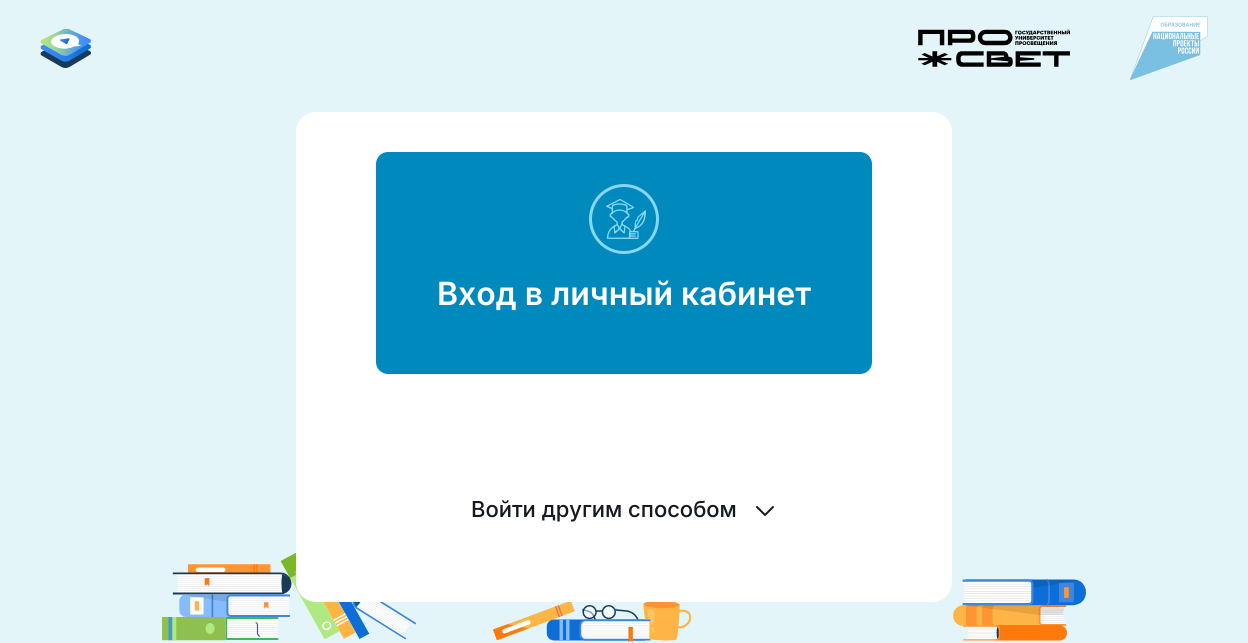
#include <cairo.h>
#include <math.h>
#include <stddef.h>


static void rgb(cairo_t *cr, int r, int g, int b)
{
	cairo_set_source_rgb(cr, r / 255.0, g / 255.0, b / 255.0);
}

static void face(cairo_t *cr, const char *family, double size, int italic, int bold)
{
	cairo_select_font_face(cr, family, italic ? CAIRO_FONT_SLANT_ITALIC : CAIRO_FONT_SLANT_NORMAL,
		bold ? CAIRO_FONT_WEIGHT_BOLD : CAIRO_FONT_WEIGHT_NORMAL);
	cairo_set_font_size(cr, size);
}

static void label(cairo_t *cr, double x, double y, const char *s)
{
	cairo_move_to(cr, x, y);
	cairo_show_text(cr, s);
}

static void rrect(cairo_t *cr, double x, double y, double w, double h, double r)
{
	cairo_new_sub_path(cr);
	cairo_arc(cr, x + w - r, y + h - r, r, 0, M_PI / 2);
	cairo_arc(cr, x + r, y + h - r, r, M_PI / 2, M_PI);
	cairo_arc(cr, x + r, y + r, r, M_PI, 1.5 * M_PI);
	cairo_arc(cr, x + w - r, y + r, r, 1.5 * M_PI, 2 * M_PI);
	cairo_close_path(cr);
}

static void image(cairo_t *cr, const char *path, double x, double y, double w, double h)
{
	cairo_surface_t *image = cairo_image_surface_create_from_png(path);
	cairo_save(cr);
	cairo_set_source_surface(cr, image, x, y);
	cairo_rectangle(cr, x, y, w, h);
	cairo_fill(cr);
	cairo_restore(cr);
	cairo_surface_destroy(image);
}

static void draw(cairo_t *cr) {
	rgb(cr, 228, 245, 250);
	cairo_paint(cr);
	image(cr, "image0.png", 162, 553, 924, 90);
	image(cr, "image1.png", 40, 28, 51, 40);
	image(cr, "image2.png", 918, 29, 152, 38);
	image(cr, "image3.png", 1130, 16, 78, 64);
	rgb(cr, 255, 255, 255);
	rrect(cr, 296, 112, 656, 490, 20);
	cairo_fill(cr);
	rgb(cr, 0, 137, 188);
	rrect(cr, 376, 152, 496, 222, 12);
	cairo_fill(cr);
	image(cr, "image4.png", 589, 184, 70, 70);
	face(cr, "Inter SemiBold", 32, 0, 0);
	rgb(cr, 255, 255, 255);
	label(cr, 437, 305, "Вход в личный кабинет");
	face(cr, "Inter Medium", 22, 0, 0);
	rgb(cr, 20, 26, 32);
	label(cr, 471, 517, "Войти другим способом");
	cairo_new_path(cr);
	cairo_move_to(cr, 757, 507);
	cairo_line_to(cr, 765, 515);
	cairo_line_to(cr, 773, 507);
	cairo_set_line_cap(cr, CAIRO_LINE_CAP_ROUND);
	cairo_set_line_join(cr, CAIRO_LINE_JOIN_ROUND);
	cairo_stroke(cr);
}

int main(void) {
	cairo_surface_t *surface = cairo_image_surface_create(CAIRO_FORMAT_RGB24, 1248, 643);
	cairo_t *cr = cairo_create(surface);
	cairo_font_options_t *options = cairo_font_options_create();
	cairo_font_options_set_hint_metrics(options, CAIRO_HINT_METRICS_OFF);
	cairo_font_options_set_hint_style(options, CAIRO_HINT_STYLE_NONE);
	cairo_set_font_options(cr, options);
	cairo_set_miter_limit(cr, 4);
	draw(cr);
	cairo_surface_write_to_png(surface, "render.png");
	cairo_font_options_destroy(options);
	cairo_destroy(cr);
	cairo_surface_destroy(surface);
	return 0;
}
